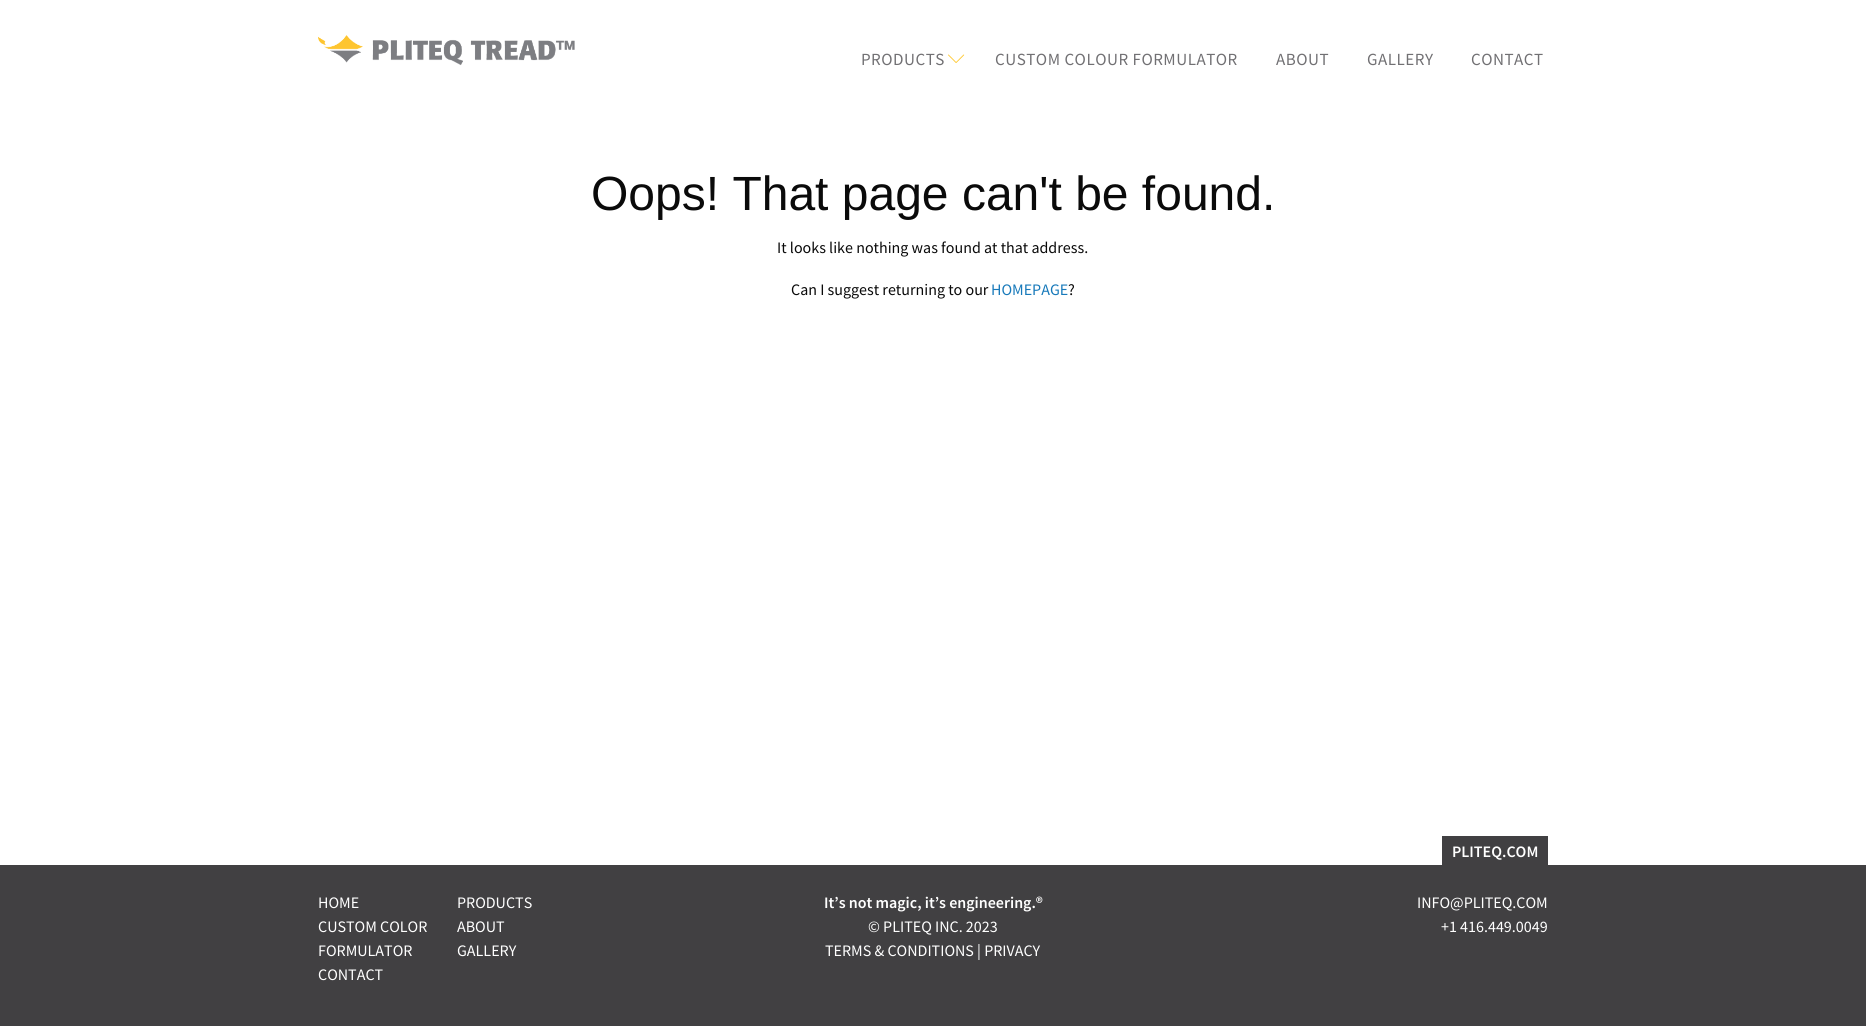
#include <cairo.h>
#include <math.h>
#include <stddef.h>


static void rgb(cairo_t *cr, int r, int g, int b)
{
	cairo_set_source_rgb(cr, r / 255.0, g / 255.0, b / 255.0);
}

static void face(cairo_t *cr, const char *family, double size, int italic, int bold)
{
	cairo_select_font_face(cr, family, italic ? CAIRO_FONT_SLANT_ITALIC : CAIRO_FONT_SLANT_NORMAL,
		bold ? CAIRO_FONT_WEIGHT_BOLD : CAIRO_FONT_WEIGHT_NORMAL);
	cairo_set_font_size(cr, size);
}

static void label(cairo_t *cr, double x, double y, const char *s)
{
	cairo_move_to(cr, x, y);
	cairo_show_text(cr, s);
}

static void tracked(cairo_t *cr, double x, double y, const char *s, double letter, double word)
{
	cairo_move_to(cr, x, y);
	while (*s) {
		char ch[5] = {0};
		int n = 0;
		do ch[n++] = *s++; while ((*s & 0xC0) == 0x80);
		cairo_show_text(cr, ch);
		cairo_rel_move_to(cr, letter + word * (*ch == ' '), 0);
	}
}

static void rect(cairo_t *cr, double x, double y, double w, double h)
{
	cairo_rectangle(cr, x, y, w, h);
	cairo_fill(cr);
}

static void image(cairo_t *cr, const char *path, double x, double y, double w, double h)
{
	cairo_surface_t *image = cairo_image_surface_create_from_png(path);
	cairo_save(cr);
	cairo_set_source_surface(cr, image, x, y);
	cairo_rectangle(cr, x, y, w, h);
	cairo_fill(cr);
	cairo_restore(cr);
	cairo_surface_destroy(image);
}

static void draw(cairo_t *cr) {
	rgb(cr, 255, 255, 255);
	cairo_paint(cr);
	image(cr, "image0.png", 318, 35, 257, 31);
	face(cr, "Source Sans Pro", 17, 0, 0);
	rgb(cr, 113, 112, 115);
	tracked(cr, 861, 65, "PRODUCTS", 0.5, 0);
	image(cr, "image1.png", 948, 54, 17, 9);
	tracked(cr, 995, 65, "CUSTOM COLOUR FORMULATOR", 0.5, 0);
	tracked(cr, 1276, 65, "ABOUT", 0.5, 0);
	tracked(cr, 1367, 65, "GALLERY", 0.5, 0);
	tracked(cr, 1471, 65, "CONTACT", 0.5, 0);
	face(cr, "Liberation Sans", 48, 0, 0);
	rgb(cr, 10, 10, 10);
	label(cr, 591, 210, "Oops! That page can't be found.");
	face(cr, "Source Sans Pro", 16, 0, 0);
	label(cr, 777, 253, "It looks like nothing was found at that address.");
	label(cr, 791, 295, "Can I suggest returning to our");
	rgb(cr, 23, 121, 186);
	label(cr, 991, 295, "HOMEPAGE");
	rgb(cr, 10, 10, 10);
	label(cr, 1068, 295, "?");
	rgb(cr, 65, 64, 66);
	rect(cr, 0, 865, 1866, 161);
	rect(cr, 1442, 836, 106, 29);
	face(cr, "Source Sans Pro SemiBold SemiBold", 16, 0, 0);
	rgb(cr, 255, 255, 255);
	label(cr, 1452, 857, "PLITEQ.COM");
	face(cr, "Source Sans Pro", 16, 0, 0);
	label(cr, 318, 908, "HOME");
	label(cr, 457, 908, "PRODUCTS");
	label(cr, 318, 932, "CUSTOM COLOR");
	label(cr, 318, 956, "FORMULATOR");
	label(cr, 457, 932, "ABOUT");
	label(cr, 457, 956, "GALLERY");
	label(cr, 318, 980, "CONTACT");
	face(cr, "Source Sans Pro SemiBold SemiBold", 16, 0, 0);
	label(cr, 824, 908, "It’s not magic, it’s engineering.®");
	face(cr, "Source Sans Pro", 16, 0, 0);
	label(cr, 868, 932, "© PLITEQ INC. 2023");
	label(cr, 825, 956, "TERMS & CONDITIONS | PRIVACY");
	label(cr, 1417, 908, "INFO@PLITEQ.COM");
	label(cr, 1441, 932, "+1 416.449.0049");
}

int main(void) {
	cairo_surface_t *surface = cairo_image_surface_create(CAIRO_FORMAT_RGB24, 1866, 1026);
	cairo_t *cr = cairo_create(surface);
	cairo_font_options_t *options = cairo_font_options_create();
	cairo_font_options_set_hint_metrics(options, CAIRO_HINT_METRICS_OFF);
	cairo_font_options_set_hint_style(options, CAIRO_HINT_STYLE_NONE);
	cairo_set_font_options(cr, options);
	cairo_set_miter_limit(cr, 4);
	draw(cr);
	cairo_surface_write_to_png(surface, "render.png");
	cairo_font_options_destroy(options);
	cairo_destroy(cr);
	cairo_surface_destroy(surface);
	return 0;
}
